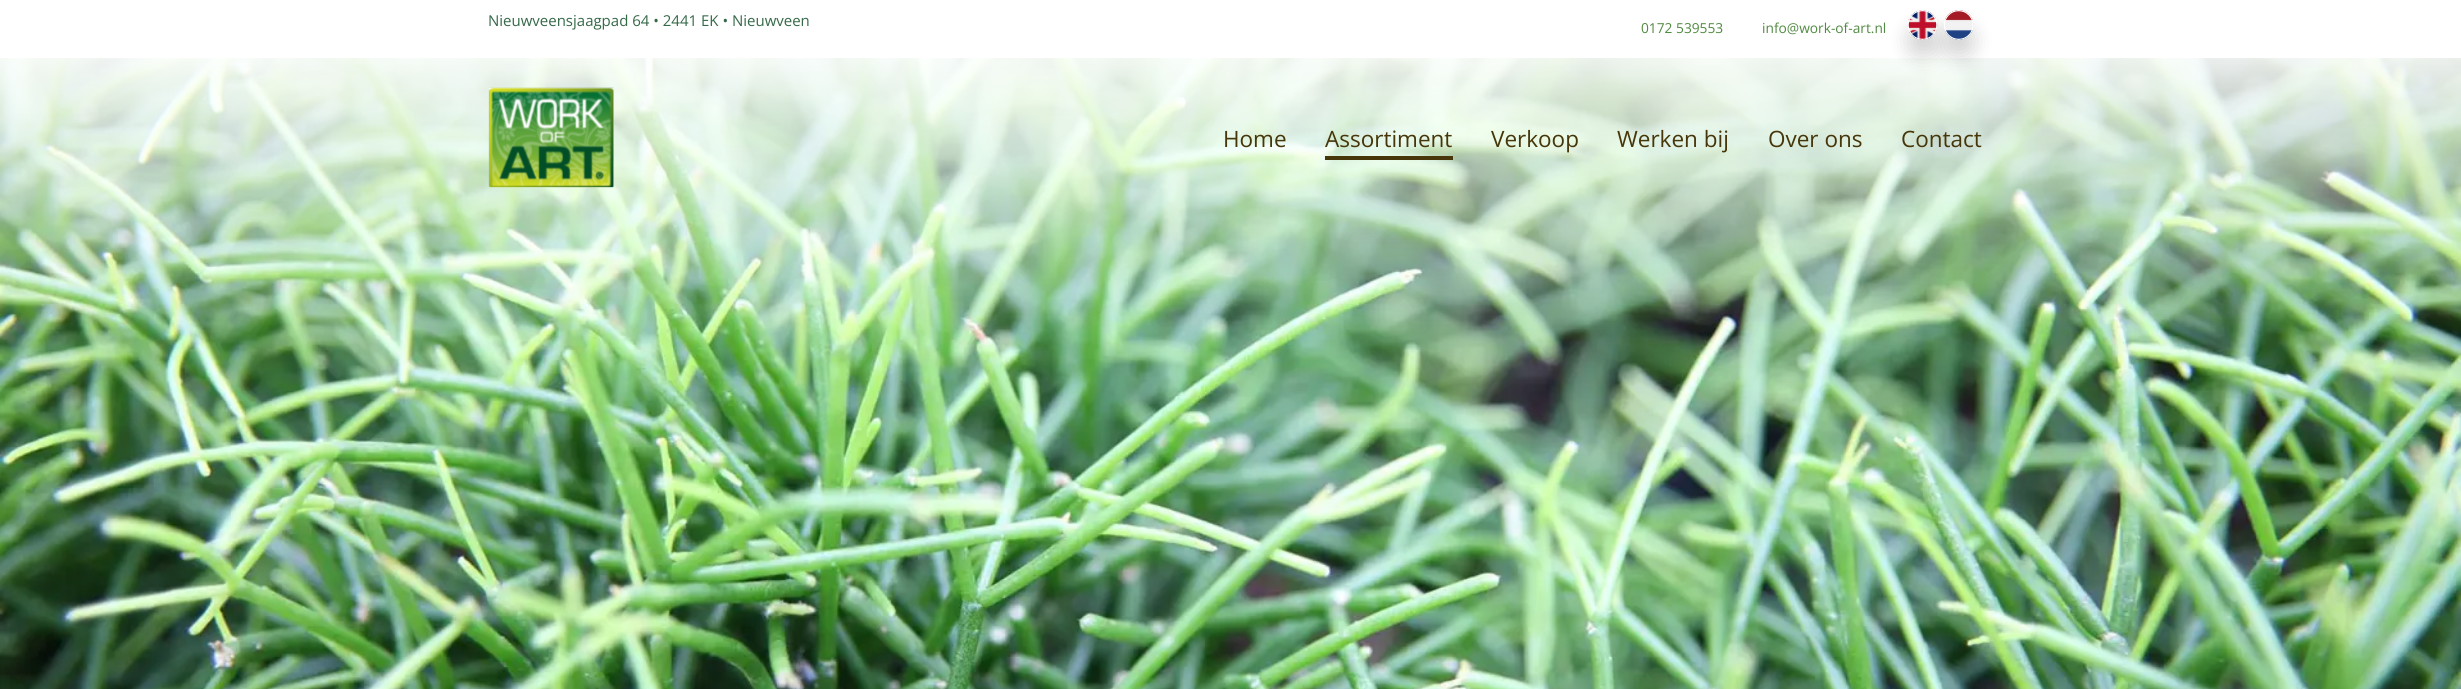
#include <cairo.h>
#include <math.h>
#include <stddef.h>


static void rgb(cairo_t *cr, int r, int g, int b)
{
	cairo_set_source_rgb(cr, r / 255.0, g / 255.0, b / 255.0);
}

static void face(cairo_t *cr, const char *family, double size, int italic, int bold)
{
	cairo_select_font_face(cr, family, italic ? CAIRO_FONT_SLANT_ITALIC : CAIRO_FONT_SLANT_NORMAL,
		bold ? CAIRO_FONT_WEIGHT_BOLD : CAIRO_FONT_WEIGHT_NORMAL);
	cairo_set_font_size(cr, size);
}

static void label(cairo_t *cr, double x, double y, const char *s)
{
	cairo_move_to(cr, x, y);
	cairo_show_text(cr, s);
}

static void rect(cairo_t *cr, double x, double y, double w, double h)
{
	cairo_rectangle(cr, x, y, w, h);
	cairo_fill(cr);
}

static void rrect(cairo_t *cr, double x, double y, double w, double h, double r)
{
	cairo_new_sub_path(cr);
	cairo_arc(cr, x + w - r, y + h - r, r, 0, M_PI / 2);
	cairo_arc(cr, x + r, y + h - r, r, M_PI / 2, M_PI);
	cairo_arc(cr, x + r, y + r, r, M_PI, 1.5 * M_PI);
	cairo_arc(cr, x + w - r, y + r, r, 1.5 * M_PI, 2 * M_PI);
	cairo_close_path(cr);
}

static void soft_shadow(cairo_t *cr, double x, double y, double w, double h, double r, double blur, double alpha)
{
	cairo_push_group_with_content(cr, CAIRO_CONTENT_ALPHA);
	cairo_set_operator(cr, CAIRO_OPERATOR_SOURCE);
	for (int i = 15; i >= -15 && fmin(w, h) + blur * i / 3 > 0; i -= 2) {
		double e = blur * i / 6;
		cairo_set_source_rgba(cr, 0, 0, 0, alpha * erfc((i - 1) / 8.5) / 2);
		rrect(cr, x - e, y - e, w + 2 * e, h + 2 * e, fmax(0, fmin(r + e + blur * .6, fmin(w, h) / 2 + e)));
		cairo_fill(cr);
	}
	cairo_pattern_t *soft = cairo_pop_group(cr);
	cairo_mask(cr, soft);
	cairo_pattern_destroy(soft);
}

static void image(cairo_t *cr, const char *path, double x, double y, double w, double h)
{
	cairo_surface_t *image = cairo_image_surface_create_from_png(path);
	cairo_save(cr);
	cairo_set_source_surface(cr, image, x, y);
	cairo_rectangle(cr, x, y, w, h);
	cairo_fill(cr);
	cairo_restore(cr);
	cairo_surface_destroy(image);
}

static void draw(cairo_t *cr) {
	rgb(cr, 255, 255, 255);
	cairo_paint(cr);
	face(cr, "Open Sans", 15, 0, 0);
	rgb(cr, 53, 105, 72);
	label(cr, 488, 26, "Nieuwveensjaagpad 64 • 2441 EK • Nieuwveen");
	image(cr, "image3.png", 0, 58, 2461, 631);
	rgb(cr, 0, 0, 0);
	soft_shadow(cr, 1908, 26, 30, 30, 15, 10, 0.16);
	image(cr, "image0.png", 1908, 10, 30, 30);
	face(cr, "Open Sans", 13.75, 0, 0);
	rgb(cr, 81, 138, 66);
	label(cr, 1641, 33, "0172 539553");
	label(cr, 1762, 33, "info@work-of-art.nl");
	rgb(cr, 0, 0, 0);
	soft_shadow(cr, 1944, 26, 30, 30, 15, 10, 0.16);
	image(cr, "image1.png", 1944, 10, 29, 30);
	image(cr, "image2.png", 488, 87, 126, 101);
	face(cr, "Open Sans", 22.5, 0, 0);
	rgb(cr, 70, 54, 9);
	label(cr, 1223, 147, "Home");
	label(cr, 1325, 147, "Assortiment");
	rect(cr, 1325, 156, 128, 4);
	label(cr, 1491, 147, "Verkoop");
	label(cr, 1617, 147, "Werken bij");
	label(cr, 1768, 147, "Over ons");
	label(cr, 1901, 147, "Contact");
}

int main(void) {
	cairo_surface_t *surface = cairo_image_surface_create(CAIRO_FORMAT_RGB24, 2461, 689);
	cairo_t *cr = cairo_create(surface);
	cairo_font_options_t *options = cairo_font_options_create();
	cairo_font_options_set_hint_metrics(options, CAIRO_HINT_METRICS_OFF);
	cairo_font_options_set_hint_style(options, CAIRO_HINT_STYLE_NONE);
	cairo_set_font_options(cr, options);
	cairo_set_miter_limit(cr, 4);
	draw(cr);
	cairo_surface_write_to_png(surface, "render.png");
	cairo_font_options_destroy(options);
	cairo_destroy(cr);
	cairo_surface_destroy(surface);
	return 0;
}
